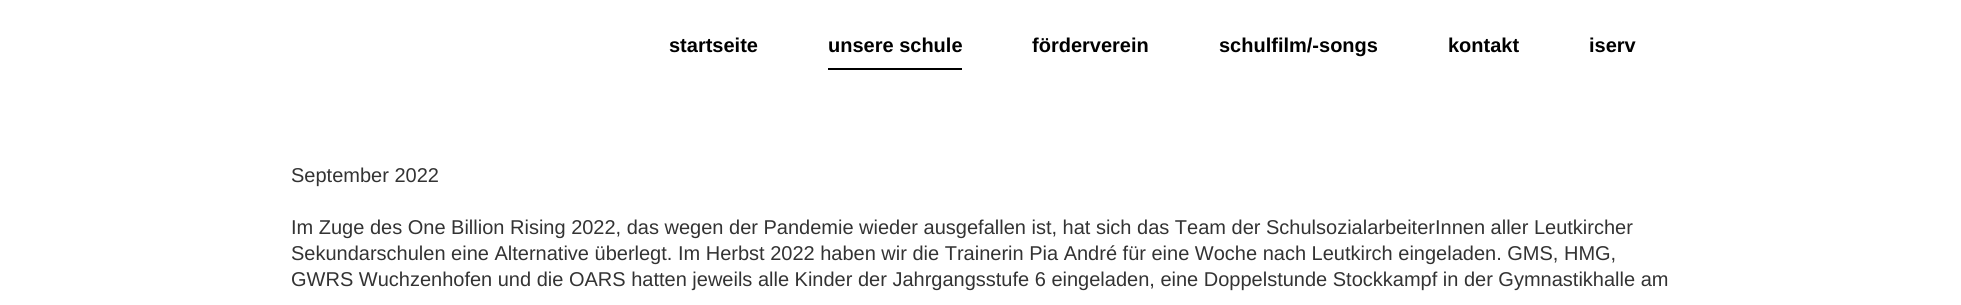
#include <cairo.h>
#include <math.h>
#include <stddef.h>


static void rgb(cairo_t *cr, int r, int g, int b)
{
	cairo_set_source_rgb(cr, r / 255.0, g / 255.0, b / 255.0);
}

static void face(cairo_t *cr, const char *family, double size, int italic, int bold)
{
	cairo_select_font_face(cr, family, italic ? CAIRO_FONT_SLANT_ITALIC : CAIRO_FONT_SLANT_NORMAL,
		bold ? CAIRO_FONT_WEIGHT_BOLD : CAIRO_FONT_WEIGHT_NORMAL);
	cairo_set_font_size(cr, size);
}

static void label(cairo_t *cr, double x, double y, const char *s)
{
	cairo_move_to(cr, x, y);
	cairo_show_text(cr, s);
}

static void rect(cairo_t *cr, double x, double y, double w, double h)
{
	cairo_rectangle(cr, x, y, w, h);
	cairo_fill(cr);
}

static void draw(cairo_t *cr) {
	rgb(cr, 255, 255, 255);
	cairo_paint(cr);
	face(cr, "Liberation Sans", 20, 0, 1);
	rgb(cr, 0, 0, 0);
	label(cr, 669, 52, "startseite");
	label(cr, 828, 52, "unsere schule");
	rect(cr, 828, 68, 134, 2);
	label(cr, 1032, 52, "förderverein");
	label(cr, 1219, 52, "schulfilm/-songs");
	label(cr, 1448, 52, "kontakt");
	label(cr, 1589, 52, "iserv");
	face(cr, "Liberation Sans", 20, 0, 0);
	rgb(cr, 51, 51, 51);
	label(cr, 291, 182, "September 2022");
	label(cr, 291, 234, "Im Zuge des One Billion Rising 2022, das wegen der Pandemie wieder ausgefallen ist, hat sich das Team der SchulsozialarbeiterInnen aller Leutkircher");
	label(cr, 291, 260, "Sekundarschulen eine Alternative überlegt. Im Herbst 2022 haben wir die Trainerin Pia André für eine Woche nach Leutkirch eingeladen. GMS, HMG,");
	label(cr, 291, 286, "GWRS Wuchzenhofen und die OARS hatten jeweils alle Kinder der Jahrgangsstufe 6 eingeladen, eine Doppelstunde Stockkampf in der Gymnastikhalle am");
}

int main(void) {
	cairo_surface_t *surface = cairo_image_surface_create(CAIRO_FORMAT_RGB24, 1961, 305);
	cairo_t *cr = cairo_create(surface);
	cairo_font_options_t *options = cairo_font_options_create();
	cairo_font_options_set_hint_metrics(options, CAIRO_HINT_METRICS_OFF);
	cairo_font_options_set_hint_style(options, CAIRO_HINT_STYLE_NONE);
	cairo_set_font_options(cr, options);
	cairo_set_miter_limit(cr, 4);
	draw(cr);
	cairo_surface_write_to_png(surface, "render.png");
	cairo_font_options_destroy(options);
	cairo_destroy(cr);
	cairo_surface_destroy(surface);
	return 0;
}
